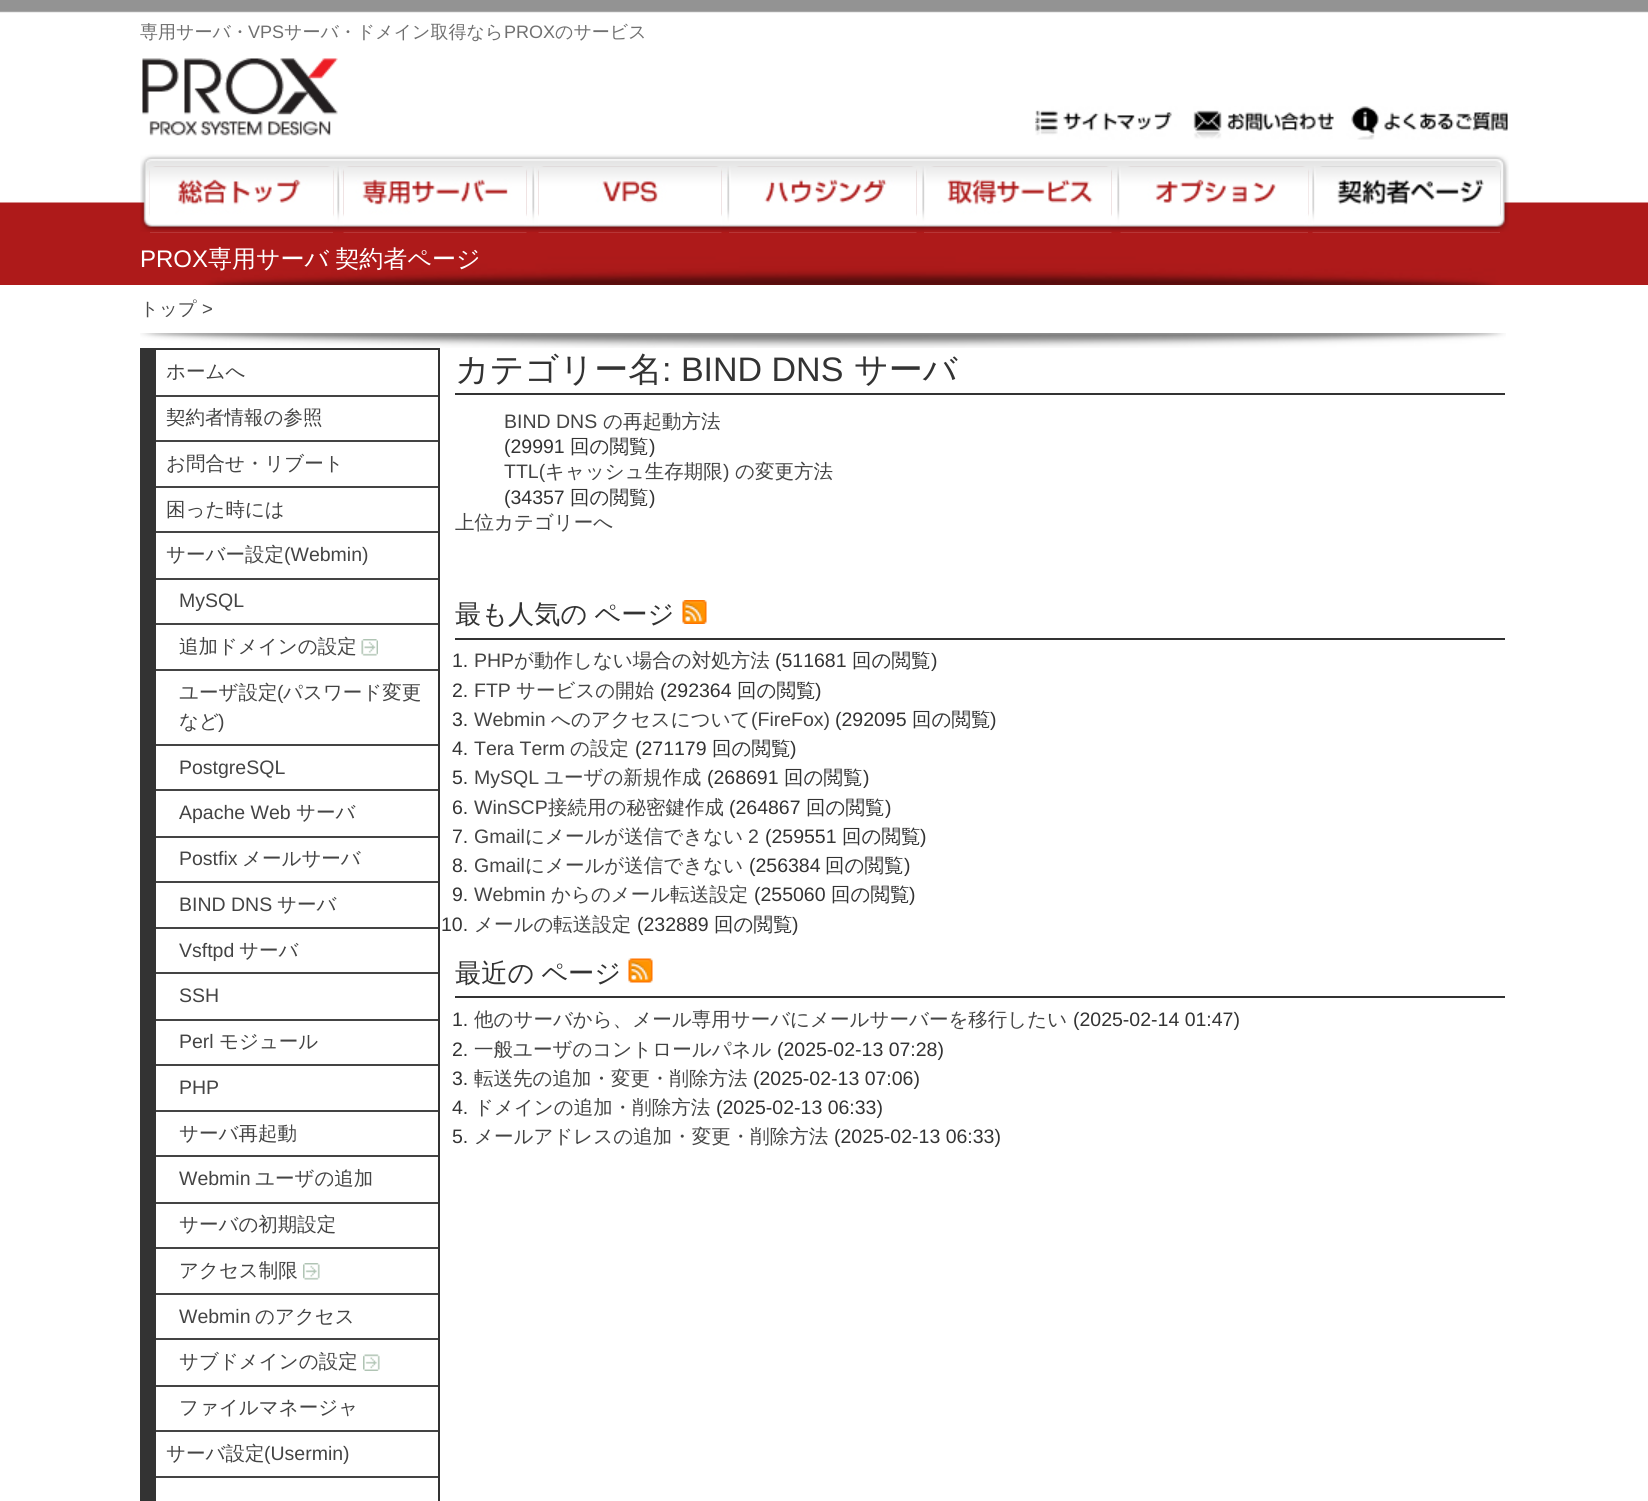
#include <cairo.h>
#include <math.h>
#include <stddef.h>


static void rgb(cairo_t *cr, int r, int g, int b)
{
	cairo_set_source_rgb(cr, r / 255.0, g / 255.0, b / 255.0);
}

static void face(cairo_t *cr, const char *family, double size, int italic, int bold)
{
	cairo_select_font_face(cr, family, italic ? CAIRO_FONT_SLANT_ITALIC : CAIRO_FONT_SLANT_NORMAL,
		bold ? CAIRO_FONT_WEIGHT_BOLD : CAIRO_FONT_WEIGHT_NORMAL);
	cairo_set_font_size(cr, size);
}

static void label(cairo_t *cr, double x, double y, const char *s)
{
	cairo_move_to(cr, x, y);
	cairo_show_text(cr, s);
}

static void tracked(cairo_t *cr, double x, double y, const char *s, double letter, double word)
{
	cairo_move_to(cr, x, y);
	while (*s) {
		char ch[5] = {0};
		int n = 0;
		do ch[n++] = *s++; while ((*s & 0xC0) == 0x80);
		cairo_show_text(cr, ch);
		cairo_rel_move_to(cr, letter + word * (*ch == ' '), 0);
	}
}

static void rect(cairo_t *cr, double x, double y, double w, double h)
{
	cairo_rectangle(cr, x, y, w, h);
	cairo_fill(cr);
}

static void image(cairo_t *cr, const char *path, double x, double y, double w, double h)
{
	cairo_surface_t *image = cairo_image_surface_create_from_png(path);
	cairo_save(cr);
	cairo_set_source_surface(cr, image, x, y);
	cairo_rectangle(cr, x, y, w, h);
	cairo_fill(cr);
	cairo_restore(cr);
	cairo_surface_destroy(image);
}

static void draw(cairo_t *cr) {
	rgb(cr, 255, 255, 255);
	cairo_paint(cr);
	image(cr, "image0.png", 0, 0, 1648, 285);
	image(cr, "image1.png", 140, 0, 1369, 285);
	face(cr, "WenQuanYi Zen Hei Medium", 18, 0, 0);
	rgb(cr, 112, 112, 112);
	label(cr, 140, 38, "専用サーバ・");
	face(cr, "Liberation Sans", 18, 0, 0);
	label(cr, 248, 38, "VPS");
	face(cr, "WenQuanYi Zen Hei Medium", 18, 0, 0);
	label(cr, 284, 38, "サーバ・ドメイン取得なら");
	face(cr, "Liberation Sans", 18, 0, 0);
	label(cr, 504, 38, "PROX");
	face(cr, "WenQuanYi Zen Hei Medium", 18, 0, 0);
	label(cr, 555, 38, "のサービス");
	image(cr, "image2.png", 142, 58, 196, 78);
	image(cr, "image3.png", 1035, 106, 473, 34);
	image(cr, "image11.png", 140, 154, 1369, 78);
	image(cr, "image12.png", 150, 166, 183, 67);
	image(cr, "image13.png", 343, 166, 184, 67);
	image(cr, "image14.png", 538, 166, 184, 67);
	image(cr, "image15.png", 729, 166, 188, 67);
	image(cr, "image16.png", 924, 166, 188, 67);
	image(cr, "image17.png", 1120, 166, 188, 67);
	image(cr, "image18.png", 1312, 166, 188, 67);
	image(cr, "image4.png", 150, 232, 1350, 53);
	face(cr, "Liberation Sans", 24, 0, 0);
	rgb(cr, 255, 255, 255);
	label(cr, 140, 267, "PROX");
	face(cr, "WenQuanYi Zen Hei Medium", 24, 0, 0);
	tracked(cr, 208, 267, "専用サーバ 契約者ページ", 0, -1);
	image(cr, "image5.png", 140, 333, 1366, 15);
	face(cr, "WenQuanYi Zen Hei Medium", 18.5, 0, 0);
	rgb(cr, 75, 75, 75);
	label(cr, 140, 315, "トップ");
	face(cr, "Liberation Sans", 18.5, 0, 0);
	label(cr, 202, 315, ">");
	cairo_rectangle(cr, 141, 349, 298, 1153);
	rgb(cr, 51, 51, 51);
	cairo_stroke(cr);
	rect(cr, 142, 350, 14, 1151);
	rgb(cr, 68, 68, 68);
	rect(cr, 156, 395, 282, 2);
	face(cr, "WenQuanYi Zen Hei Medium", 19.5, 0, 0);
	label(cr, 166, 378, "ホームへ");
	rect(cr, 156, 440, 282, 2);
	label(cr, 166, 424, "契約者情報の参照");
	rect(cr, 156, 486, 282, 2);
	label(cr, 166, 470, "お問合せ・リブート");
	rect(cr, 156, 531, 282, 2);
	label(cr, 166, 516, "困った時には");
	rect(cr, 156, 578, 282, 2);
	label(cr, 166, 561, "サーバー設定");
	face(cr, "Liberation Sans", 19.5, 0, 0);
	label(cr, 284, 561, "(Webmin)");
	rect(cr, 156, 623, 282, 2);
	label(cr, 179, 607, "MySQL");
	rect(cr, 156, 669, 282, 2);
	face(cr, "WenQuanYi Zen Hei Medium", 19.5, 0, 0);
	label(cr, 179, 653, "追加ドメインの設定");
	image(cr, "image6.png", 361, 639, 17, 17);
	rect(cr, 156, 744, 282, 2);
	label(cr, 179, 699, "ユーザ設定");
	face(cr, "Liberation Sans", 19.5, 0, 0);
	label(cr, 277, 699, "(");
	face(cr, "WenQuanYi Zen Hei Medium", 19.5, 0, 0);
	label(cr, 283, 699, "パスワード変更");
	label(cr, 179, 728, "など");
	face(cr, "Liberation Sans", 19.5, 0, 0);
	label(cr, 218, 728, ")");
	rect(cr, 156, 789, 282, 2);
	label(cr, 179, 774, "PostgreSQL");
	rect(cr, 156, 836, 282, 2);
	label(cr, 179, 819, "Apache Web");
	face(cr, "WenQuanYi Zen Hei Medium", 19.5, 0, 0);
	label(cr, 296, 819, "サーバ");
	rect(cr, 156, 881, 282, 2);
	face(cr, "Liberation Sans", 19.5, 0, 0);
	label(cr, 179, 865, "Postfix");
	face(cr, "WenQuanYi Zen Hei Medium", 19.5, 0, 0);
	label(cr, 242, 865, "メールサーバ");
	rect(cr, 156, 927, 282, 2);
	face(cr, "Liberation Sans", 19.5, 0, 0);
	label(cr, 179, 911, "BIND DNS");
	face(cr, "WenQuanYi Zen Hei Medium", 19.5, 0, 0);
	label(cr, 277, 911, "サーバ");
	rect(cr, 156, 972, 282, 2);
	face(cr, "Liberation Sans", 19.5, 0, 0);
	label(cr, 179, 957, "Vsftpd");
	face(cr, "WenQuanYi Zen Hei Medium", 19.5, 0, 0);
	label(cr, 239, 957, "サーバ");
	rect(cr, 156, 1019, 282, 2);
	face(cr, "Liberation Sans", 19.5, 0, 0);
	label(cr, 179, 1002, "SSH");
	rect(cr, 156, 1064, 282, 2);
	label(cr, 179, 1048, "Perl");
	face(cr, "WenQuanYi Zen Hei Medium", 19.5, 0, 0);
	label(cr, 219, 1048, "モジュール");
	rect(cr, 156, 1110, 282, 2);
	face(cr, "Liberation Sans", 19.5, 0, 0);
	label(cr, 179, 1094, "PHP");
	rect(cr, 156, 1155, 282, 2);
	face(cr, "WenQuanYi Zen Hei Medium", 19.5, 0, 0);
	label(cr, 179, 1140, "サーバ再起動");
	rect(cr, 156, 1202, 282, 2);
	face(cr, "Liberation Sans", 19.5, 0, 0);
	label(cr, 179, 1185, "Webmin");
	face(cr, "WenQuanYi Zen Hei Medium", 19.5, 0, 0);
	label(cr, 255, 1185, "ユーザの追加");
	rect(cr, 156, 1247, 282, 2);
	label(cr, 179, 1231, "サーバの初期設定");
	rect(cr, 156, 1293, 282, 2);
	label(cr, 179, 1277, "アクセス制限");
	image(cr, "image7.png", 303, 1263, 17, 17);
	rect(cr, 156, 1338, 282, 2);
	face(cr, "Liberation Sans", 19.5, 0, 0);
	label(cr, 179, 1323, "Webmin");
	face(cr, "WenQuanYi Zen Hei Medium", 19.5, 0, 0);
	label(cr, 255, 1323, "のアクセス");
	rect(cr, 156, 1385, 282, 2);
	label(cr, 179, 1368, "サブドメインの設定");
	image(cr, "image8.png", 363, 1354, 17, 17);
	rect(cr, 156, 1430, 282, 2);
	label(cr, 179, 1414, "ファイルマネージャ");
	rect(cr, 156, 1476, 282, 2);
	label(cr, 166, 1460, "サーバ設定");
	face(cr, "Liberation Sans", 19.5, 0, 0);
	label(cr, 264, 1460, "(Usermin)");
	rgb(cr, 51, 51, 51);
	rect(cr, 455, 393, 1050, 2);
	face(cr, "WenQuanYi Zen Hei Medium", 34, 0, 0);
	label(cr, 455, 381, "カテゴリー名");
	face(cr, "Liberation Sans", 34, 0, 0);
	label(cr, 662, 381, ": BIND DNS");
	face(cr, "WenQuanYi Zen Hei Medium", 34, 0, 0);
	label(cr, 854, 381, "サーバ");
	face(cr, "Liberation Sans", 19.5, 0, 0);
	rgb(cr, 68, 68, 68);
	label(cr, 504, 428, "BIND DNS");
	face(cr, "WenQuanYi Zen Hei Medium", 19.5, 0, 0);
	label(cr, 603, 428, "の再起動方法");
	face(cr, "Liberation Sans", 19.5, 0, 0);
	rgb(cr, 51, 51, 51);
	label(cr, 504, 453, "(29991");
	face(cr, "WenQuanYi Zen Hei Medium", 19.5, 0, 0);
	label(cr, 570, 453, "回の閲覧");
	face(cr, "Liberation Sans", 19.5, 0, 0);
	label(cr, 649, 453, ")");
	rgb(cr, 68, 68, 68);
	label(cr, 504, 478, "TTL(");
	face(cr, "WenQuanYi Zen Hei Medium", 19.5, 0, 0);
	label(cr, 545, 478, "キャッシュ生存期限");
	face(cr, "Liberation Sans", 19.5, 0, 0);
	label(cr, 723, 478, ")");
	face(cr, "WenQuanYi Zen Hei Medium", 19.5, 0, 0);
	label(cr, 735, 478, "の変更方法");
	face(cr, "Liberation Sans", 19.5, 0, 0);
	rgb(cr, 51, 51, 51);
	label(cr, 504, 504, "(34357");
	face(cr, "WenQuanYi Zen Hei Medium", 19.5, 0, 0);
	label(cr, 570, 504, "回の閲覧");
	face(cr, "Liberation Sans", 19.5, 0, 0);
	label(cr, 649, 504, ")");
	face(cr, "WenQuanYi Zen Hei Medium", 19.5, 0, 0);
	rgb(cr, 68, 68, 68);
	label(cr, 455, 529, "上位カテゴリーへ");
	rgb(cr, 51, 51, 51);
	rect(cr, 455, 638, 1050, 2);
	face(cr, "WenQuanYi Zen Hei Medium", 26.25, 0, 0);
	tracked(cr, 455, 623, "最も人気の ページ", 0, -1);
	image(cr, "image9.png", 682, 600, 25, 24);
	face(cr, "Liberation Sans", 19.5, 0, 0);
	label(cr, 452, 667, "1.");
	rgb(cr, 68, 68, 68);
	label(cr, 474, 667, "PHP");
	face(cr, "WenQuanYi Zen Hei Medium", 19.5, 0, 0);
	label(cr, 514, 667, "が動作しない場合の対処方法");
	face(cr, "Liberation Sans", 19.5, 0, 0);
	rgb(cr, 51, 51, 51);
	label(cr, 775, 667, "(511681");
	face(cr, "WenQuanYi Zen Hei Medium", 19.5, 0, 0);
	label(cr, 852, 667, "回の閲覧");
	face(cr, "Liberation Sans", 19.5, 0, 0);
	label(cr, 931, 667, ")");
	label(cr, 452, 697, "2.");
	rgb(cr, 68, 68, 68);
	label(cr, 474, 697, "FTP");
	face(cr, "WenQuanYi Zen Hei Medium", 19.5, 0, 0);
	label(cr, 516, 697, "サービスの開始");
	face(cr, "Liberation Sans", 19.5, 0, 0);
	rgb(cr, 51, 51, 51);
	label(cr, 660, 697, "(292364");
	face(cr, "WenQuanYi Zen Hei Medium", 19.5, 0, 0);
	label(cr, 737, 697, "回の閲覧");
	face(cr, "Liberation Sans", 19.5, 0, 0);
	label(cr, 815, 697, ")");
	label(cr, 452, 726, "3.");
	rgb(cr, 68, 68, 68);
	label(cr, 474, 726, "Webmin");
	face(cr, "WenQuanYi Zen Hei Medium", 19.5, 0, 0);
	label(cr, 551, 726, "へのアクセスについて");
	face(cr, "Liberation Sans", 19.5, 0, 0);
	label(cr, 751, 726, "(FireFox)");
	rgb(cr, 51, 51, 51);
	label(cr, 835, 726, "(292095");
	face(cr, "WenQuanYi Zen Hei Medium", 19.5, 0, 0);
	label(cr, 912, 726, "回の閲覧");
	face(cr, "Liberation Sans", 19.5, 0, 0);
	label(cr, 990, 726, ")");
	label(cr, 452, 755, "4.");
	rgb(cr, 68, 68, 68);
	label(cr, 474, 755, "Tera Term");
	face(cr, "WenQuanYi Zen Hei Medium", 19.5, 0, 0);
	label(cr, 570, 755, "の設定");
	face(cr, "Liberation Sans", 19.5, 0, 0);
	rgb(cr, 51, 51, 51);
	label(cr, 635, 755, "(271179");
	face(cr, "WenQuanYi Zen Hei Medium", 19.5, 0, 0);
	label(cr, 712, 755, "回の閲覧");
	face(cr, "Liberation Sans", 19.5, 0, 0);
	label(cr, 790, 755, ")");
	label(cr, 452, 784, "5.");
	rgb(cr, 68, 68, 68);
	label(cr, 474, 784, "MySQL");
	face(cr, "WenQuanYi Zen Hei Medium", 19.5, 0, 0);
	label(cr, 544, 784, "ユーザの新規作成");
	face(cr, "Liberation Sans", 19.5, 0, 0);
	rgb(cr, 51, 51, 51);
	label(cr, 707, 784, "(268691");
	face(cr, "WenQuanYi Zen Hei Medium", 19.5, 0, 0);
	label(cr, 784, 784, "回の閲覧");
	face(cr, "Liberation Sans", 19.5, 0, 0);
	label(cr, 863, 784, ")");
	label(cr, 452, 814, "6.");
	rgb(cr, 68, 68, 68);
	label(cr, 474, 814, "WinSCP");
	face(cr, "WenQuanYi Zen Hei Medium", 19.5, 0, 0);
	label(cr, 548, 814, "接続用の秘密鍵作成");
	face(cr, "Liberation Sans", 19.5, 0, 0);
	rgb(cr, 51, 51, 51);
	label(cr, 729, 814, "(264867");
	face(cr, "WenQuanYi Zen Hei Medium", 19.5, 0, 0);
	label(cr, 806, 814, "回の閲覧");
	face(cr, "Liberation Sans", 19.5, 0, 0);
	label(cr, 885, 814, ")");
	label(cr, 452, 843, "7.");
	rgb(cr, 68, 68, 68);
	label(cr, 474, 843, "Gmail");
	face(cr, "WenQuanYi Zen Hei Medium", 19.5, 0, 0);
	label(cr, 525, 843, "にメールが送信できない");
	face(cr, "Liberation Sans", 19.5, 0, 0);
	label(cr, 748, 843, "2");
	rgb(cr, 51, 51, 51);
	label(cr, 765, 843, "(259551");
	face(cr, "WenQuanYi Zen Hei Medium", 19.5, 0, 0);
	label(cr, 842, 843, "回の閲覧");
	face(cr, "Liberation Sans", 19.5, 0, 0);
	label(cr, 920, 843, ")");
	label(cr, 452, 872, "8.");
	rgb(cr, 68, 68, 68);
	label(cr, 474, 872, "Gmail");
	face(cr, "WenQuanYi Zen Hei Medium", 19.5, 0, 0);
	label(cr, 525, 872, "にメールが送信できない");
	face(cr, "Liberation Sans", 19.5, 0, 0);
	rgb(cr, 51, 51, 51);
	label(cr, 749, 872, "(256384");
	face(cr, "WenQuanYi Zen Hei Medium", 19.5, 0, 0);
	label(cr, 825, 872, "回の閲覧");
	face(cr, "Liberation Sans", 19.5, 0, 0);
	label(cr, 904, 872, ")");
	label(cr, 452, 901, "9.");
	rgb(cr, 68, 68, 68);
	label(cr, 474, 901, "Webmin");
	face(cr, "WenQuanYi Zen Hei Medium", 19.5, 0, 0);
	label(cr, 551, 901, "からのメール転送設定");
	face(cr, "Liberation Sans", 19.5, 0, 0);
	rgb(cr, 51, 51, 51);
	label(cr, 754, 901, "(255060");
	face(cr, "WenQuanYi Zen Hei Medium", 19.5, 0, 0);
	label(cr, 831, 901, "回の閲覧");
	face(cr, "Liberation Sans", 19.5, 0, 0);
	label(cr, 909, 901, ")");
	label(cr, 441, 931, "10.");
	face(cr, "WenQuanYi Zen Hei Medium", 19.5, 0, 0);
	rgb(cr, 68, 68, 68);
	label(cr, 474, 931, "メールの転送設定");
	face(cr, "Liberation Sans", 19.5, 0, 0);
	rgb(cr, 51, 51, 51);
	label(cr, 637, 931, "(232889");
	face(cr, "WenQuanYi Zen Hei Medium", 19.5, 0, 0);
	label(cr, 714, 931, "回の閲覧");
	face(cr, "Liberation Sans", 19.5, 0, 0);
	label(cr, 792, 931, ")");
	rect(cr, 455, 996, 1050, 2);
	face(cr, "WenQuanYi Zen Hei Medium", 26.25, 0, 0);
	tracked(cr, 455, 982, "最近の ページ", 0, -1);
	image(cr, "image10.png", 628, 958, 25, 25);
	face(cr, "Liberation Sans", 19.5, 0, 0);
	label(cr, 452, 1026, "1.");
	face(cr, "WenQuanYi Zen Hei Medium", 19.5, 0, 0);
	rgb(cr, 68, 68, 68);
	label(cr, 474, 1026, "他のサーバから、メール専用サーバにメールサーバーを移行したい");
	face(cr, "Liberation Sans", 19.5, 0, 0);
	rgb(cr, 51, 51, 51);
	label(cr, 1073, 1026, "(2025-02-14 01:47)");
	label(cr, 452, 1056, "2.");
	face(cr, "WenQuanYi Zen Hei Medium", 19.5, 0, 0);
	rgb(cr, 68, 68, 68);
	label(cr, 474, 1056, "一般ユーザのコントロールパネル");
	face(cr, "Liberation Sans", 19.5, 0, 0);
	rgb(cr, 51, 51, 51);
	label(cr, 777, 1056, "(2025-02-13 07:28)");
	label(cr, 452, 1085, "3.");
	face(cr, "WenQuanYi Zen Hei Medium", 19.5, 0, 0);
	rgb(cr, 68, 68, 68);
	label(cr, 474, 1085, "転送先の追加・変更・削除方法");
	face(cr, "Liberation Sans", 19.5, 0, 0);
	rgb(cr, 51, 51, 51);
	label(cr, 753, 1085, "(2025-02-13 07:06)");
	label(cr, 452, 1114, "4.");
	face(cr, "WenQuanYi Zen Hei Medium", 19.5, 0, 0);
	rgb(cr, 68, 68, 68);
	label(cr, 474, 1114, "ドメインの追加・削除方法");
	face(cr, "Liberation Sans", 19.5, 0, 0);
	rgb(cr, 51, 51, 51);
	label(cr, 716, 1114, "(2025-02-13 06:33)");
	label(cr, 452, 1143, "5.");
	face(cr, "WenQuanYi Zen Hei Medium", 19.5, 0, 0);
	rgb(cr, 68, 68, 68);
	label(cr, 474, 1143, "メールアドレスの追加・変更・削除方法");
	face(cr, "Liberation Sans", 19.5, 0, 0);
	rgb(cr, 51, 51, 51);
	label(cr, 834, 1143, "(2025-02-13 06:33)");
}

int main(void) {
	cairo_surface_t *surface = cairo_image_surface_create(CAIRO_FORMAT_RGB24, 1648, 1501);
	cairo_t *cr = cairo_create(surface);
	cairo_font_options_t *options = cairo_font_options_create();
	cairo_font_options_set_hint_metrics(options, CAIRO_HINT_METRICS_OFF);
	cairo_font_options_set_hint_style(options, CAIRO_HINT_STYLE_NONE);
	cairo_set_font_options(cr, options);
	cairo_set_miter_limit(cr, 4);
	draw(cr);
	cairo_surface_write_to_png(surface, "render.png");
	cairo_font_options_destroy(options);
	cairo_destroy(cr);
	cairo_surface_destroy(surface);
	return 0;
}
